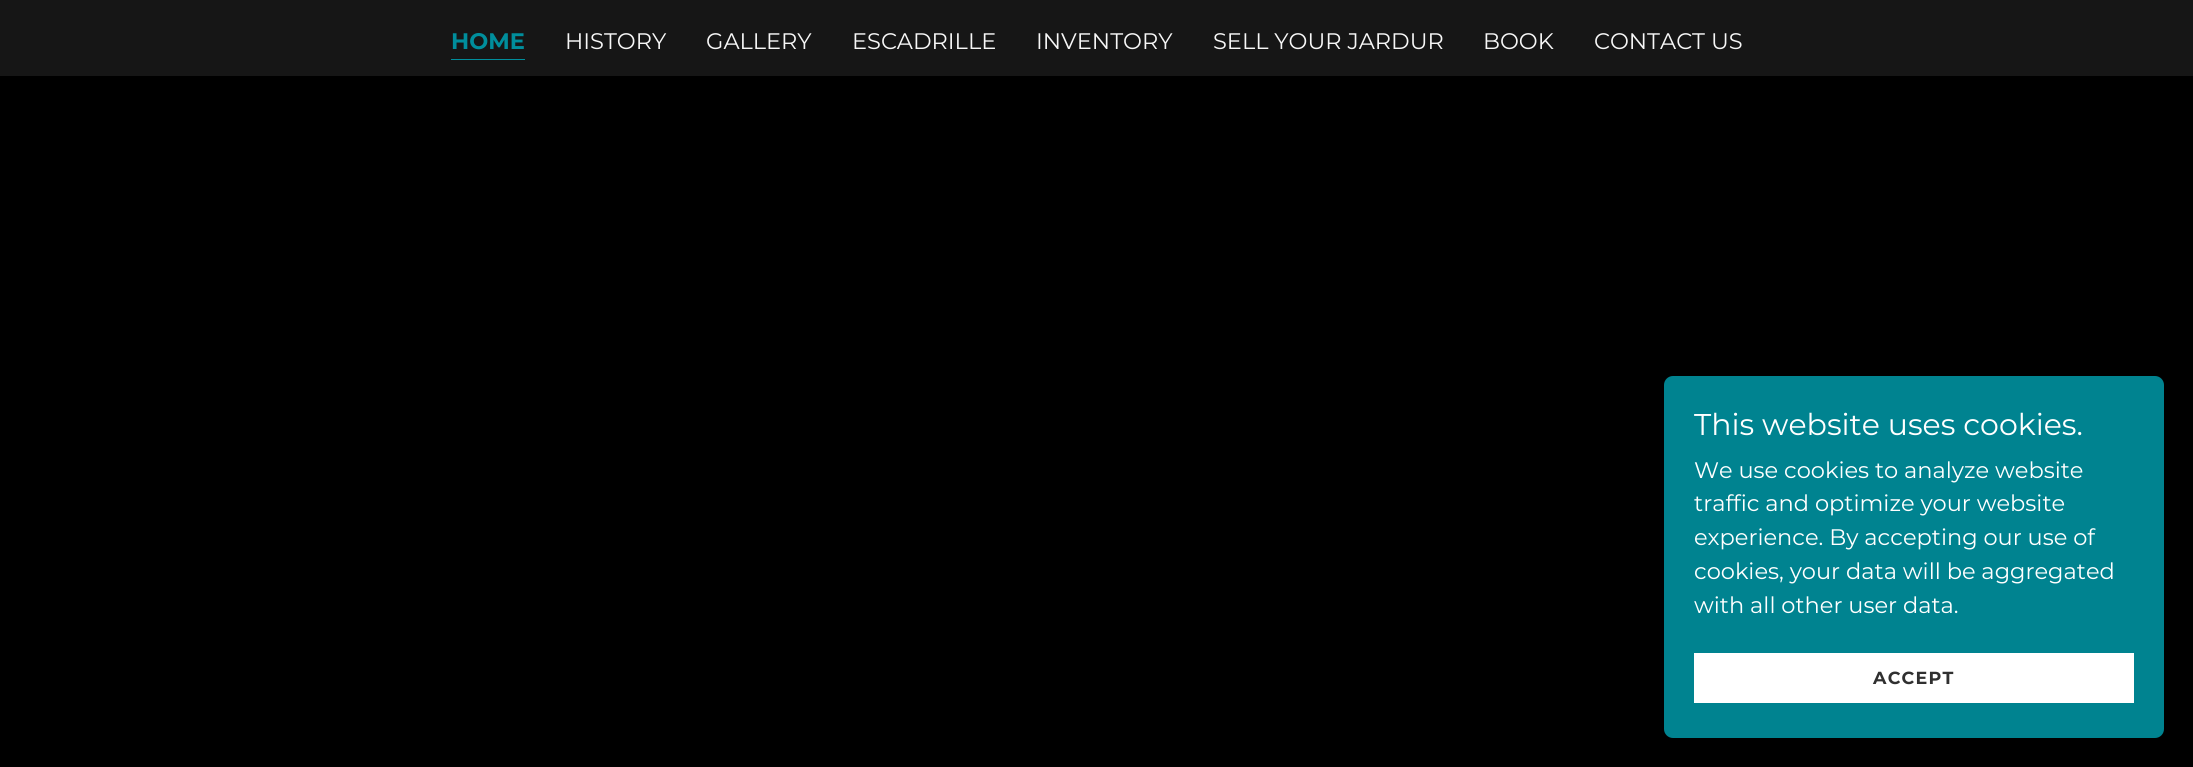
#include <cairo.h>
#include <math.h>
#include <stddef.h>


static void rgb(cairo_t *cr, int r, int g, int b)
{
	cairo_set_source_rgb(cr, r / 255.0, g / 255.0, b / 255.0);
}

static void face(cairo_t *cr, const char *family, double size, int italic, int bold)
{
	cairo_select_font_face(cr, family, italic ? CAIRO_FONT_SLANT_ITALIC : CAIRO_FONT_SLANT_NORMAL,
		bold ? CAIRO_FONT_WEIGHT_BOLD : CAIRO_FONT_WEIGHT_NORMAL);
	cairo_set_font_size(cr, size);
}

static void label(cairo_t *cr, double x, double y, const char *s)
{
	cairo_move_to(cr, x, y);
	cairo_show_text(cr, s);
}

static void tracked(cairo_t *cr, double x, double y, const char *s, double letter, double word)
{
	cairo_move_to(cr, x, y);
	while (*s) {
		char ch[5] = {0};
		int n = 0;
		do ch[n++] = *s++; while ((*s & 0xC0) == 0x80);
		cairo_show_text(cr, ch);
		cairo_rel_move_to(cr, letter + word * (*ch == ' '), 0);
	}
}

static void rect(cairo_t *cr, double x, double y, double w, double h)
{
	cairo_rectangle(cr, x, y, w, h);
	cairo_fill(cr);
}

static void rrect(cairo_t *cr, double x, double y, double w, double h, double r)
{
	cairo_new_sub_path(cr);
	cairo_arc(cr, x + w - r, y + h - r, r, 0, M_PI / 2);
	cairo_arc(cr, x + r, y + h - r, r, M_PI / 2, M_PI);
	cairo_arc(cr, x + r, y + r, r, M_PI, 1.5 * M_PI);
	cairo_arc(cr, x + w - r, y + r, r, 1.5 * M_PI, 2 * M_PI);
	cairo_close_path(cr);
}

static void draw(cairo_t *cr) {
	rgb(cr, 22, 22, 22);
	cairo_paint(cr);
	rgb(cr, 0, 142, 156);
	rect(cr, 451, 59, 74, 1);
	face(cr, "Montserrat", 22.5, 0, 1);
	label(cr, 451, 49, "HOME");
	face(cr, "Montserrat", 22.5, 0, 0);
	rgb(cr, 247, 247, 247);
	label(cr, 565, 49, "HISTORY");
	label(cr, 706, 49, "GALLERY");
	label(cr, 852, 49, "ESCADRILLE");
	label(cr, 1036, 49, "INVENTORY");
	label(cr, 1213, 49, "SELL YOUR JARDUR");
	label(cr, 1483, 49, "BOOK");
	label(cr, 1594, 49, "CONTACT US");
	rgb(cr, 0, 0, 0);
	rect(cr, 0, 76, 2193, 691);
	rgb(cr, 0, 131, 144);
	rrect(cr, 1664, 376, 500, 362, 9);
	cairo_fill(cr);
	face(cr, "Montserrat", 30, 0, 0);
	rgb(cr, 255, 255, 255);
	label(cr, 1694, 435, "This website uses cookies.");
	face(cr, "Montserrat", 22.5, 0, 0);
	label(cr, 1694, 478, "We use cookies to analyze website");
	label(cr, 1694, 511, "traffic and optimize your website");
	label(cr, 1694, 545, "experience. By accepting our use of");
	label(cr, 1694, 579, "cookies, your data will be aggregated");
	label(cr, 1694, 613, "with all other user data.");
	rect(cr, 1694, 653, 440, 50);
	face(cr, "Montserrat", 17.5, 0, 1);
	rgb(cr, 48, 48, 48);
	tracked(cr, 1873, 684, "ACCEPT", 1.25, 0);
}

int main(void) {
	cairo_surface_t *surface = cairo_image_surface_create(CAIRO_FORMAT_RGB24, 2193, 767);
	cairo_t *cr = cairo_create(surface);
	cairo_font_options_t *options = cairo_font_options_create();
	cairo_font_options_set_hint_metrics(options, CAIRO_HINT_METRICS_OFF);
	cairo_font_options_set_hint_style(options, CAIRO_HINT_STYLE_NONE);
	cairo_set_font_options(cr, options);
	cairo_set_miter_limit(cr, 4);
	draw(cr);
	cairo_surface_write_to_png(surface, "render.png");
	cairo_font_options_destroy(options);
	cairo_destroy(cr);
	cairo_surface_destroy(surface);
	return 0;
}
